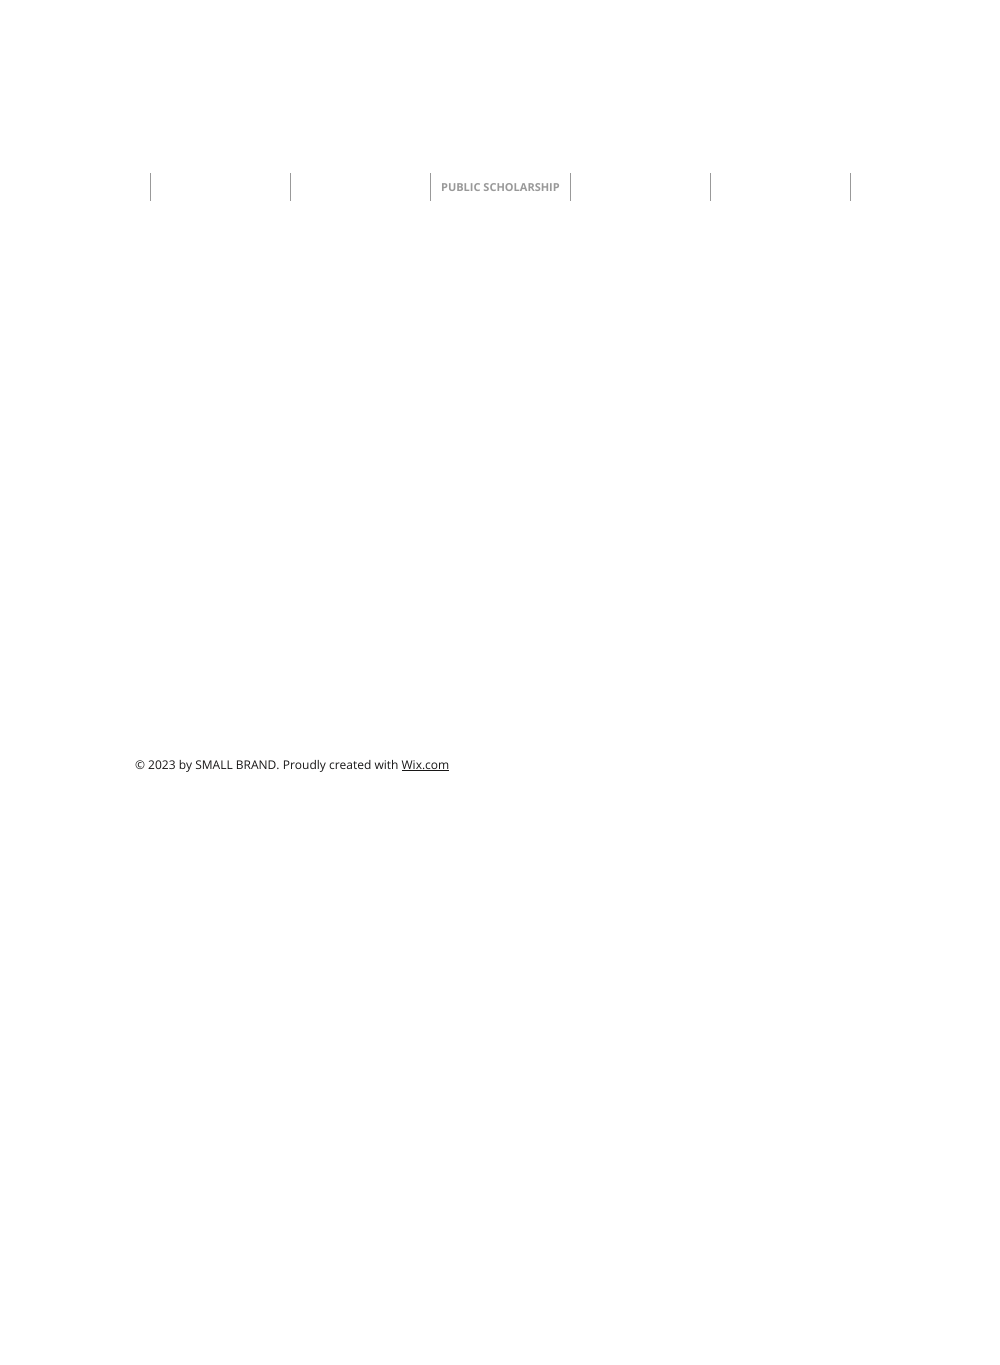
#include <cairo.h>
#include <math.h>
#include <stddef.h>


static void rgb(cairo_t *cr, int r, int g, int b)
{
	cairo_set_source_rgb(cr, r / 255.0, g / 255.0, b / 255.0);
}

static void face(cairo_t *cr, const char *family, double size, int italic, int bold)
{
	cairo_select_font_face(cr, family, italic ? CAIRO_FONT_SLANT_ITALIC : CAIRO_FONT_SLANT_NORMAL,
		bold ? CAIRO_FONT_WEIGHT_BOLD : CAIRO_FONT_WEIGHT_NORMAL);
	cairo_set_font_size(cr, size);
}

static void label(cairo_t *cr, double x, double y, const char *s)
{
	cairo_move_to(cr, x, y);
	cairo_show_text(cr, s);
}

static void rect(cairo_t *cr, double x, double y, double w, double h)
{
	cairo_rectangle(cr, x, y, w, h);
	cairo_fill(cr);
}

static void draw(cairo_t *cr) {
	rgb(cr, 255, 255, 255);
	cairo_paint(cr);
	rgb(cr, 153, 153, 153);
	rect(cr, 150, 173, 1, 28);
	rect(cr, 290, 173, 1, 28);
	rect(cr, 430, 173, 1, 28);
	face(cr, "Open Sans", 11, 0, 1);
	label(cr, 441, 191, "PUBLIC SCHOLARSHIP");
	rect(cr, 570, 173, 1, 28);
	rect(cr, 710, 173, 1, 28);
	rect(cr, 850, 173, 1, 28);
	face(cr, "Open Sans", 12, 0, 0);
	rgb(cr, 24, 23, 23);
	label(cr, 135, 769, "© 2023 by SMALL BRAND. Proudly created with Wix.com");
	rect(cr, 402, 770, 47, 1);
}

int main(void) {
	cairo_surface_t *surface = cairo_image_surface_create(CAIRO_FORMAT_RGB24, 1000, 1365);
	cairo_t *cr = cairo_create(surface);
	cairo_font_options_t *options = cairo_font_options_create();
	cairo_font_options_set_hint_metrics(options, CAIRO_HINT_METRICS_OFF);
	cairo_font_options_set_hint_style(options, CAIRO_HINT_STYLE_NONE);
	cairo_set_font_options(cr, options);
	cairo_set_miter_limit(cr, 4);
	draw(cr);
	cairo_surface_write_to_png(surface, "render.png");
	cairo_font_options_destroy(options);
	cairo_destroy(cr);
	cairo_surface_destroy(surface);
	return 0;
}
